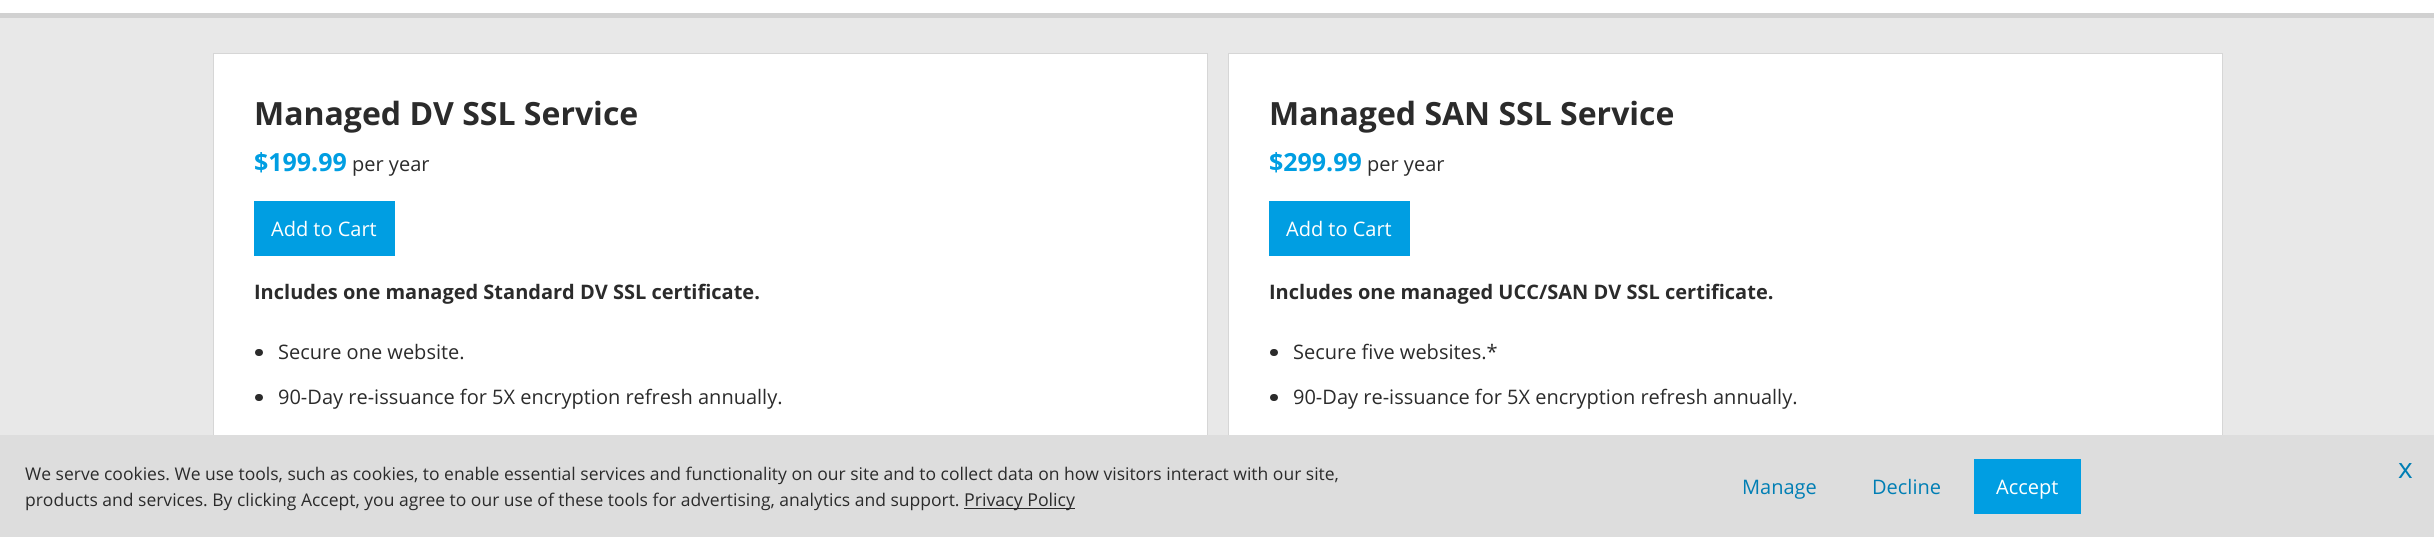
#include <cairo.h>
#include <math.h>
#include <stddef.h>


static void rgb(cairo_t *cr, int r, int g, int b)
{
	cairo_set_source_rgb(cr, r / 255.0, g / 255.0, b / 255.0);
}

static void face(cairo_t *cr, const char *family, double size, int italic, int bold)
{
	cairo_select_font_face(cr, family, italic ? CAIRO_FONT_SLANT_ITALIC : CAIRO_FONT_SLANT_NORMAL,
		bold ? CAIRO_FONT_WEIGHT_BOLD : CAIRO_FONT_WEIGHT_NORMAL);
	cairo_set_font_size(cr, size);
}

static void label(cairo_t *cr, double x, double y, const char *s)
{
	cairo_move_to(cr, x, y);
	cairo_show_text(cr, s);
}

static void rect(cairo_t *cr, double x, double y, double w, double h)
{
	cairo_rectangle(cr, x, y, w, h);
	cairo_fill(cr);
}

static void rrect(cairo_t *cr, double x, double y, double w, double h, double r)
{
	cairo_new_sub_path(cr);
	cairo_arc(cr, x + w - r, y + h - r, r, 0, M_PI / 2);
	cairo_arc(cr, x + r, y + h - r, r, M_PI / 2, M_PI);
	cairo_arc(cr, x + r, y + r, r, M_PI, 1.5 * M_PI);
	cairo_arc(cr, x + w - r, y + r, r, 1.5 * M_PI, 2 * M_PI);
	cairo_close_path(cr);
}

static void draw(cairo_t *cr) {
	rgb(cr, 232, 232, 232);
	cairo_paint(cr);
	rgb(cr, 209, 209, 209);
	rect(cr, 0, 13, 2434, 5);
	rgb(cr, 255, 255, 255);
	rect(cr, 0, 0, 2434, 13);
	rect(cr, 214, 54, 993, 381);
	cairo_rectangle(cr, 213.5, 53.5, 994, 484);
	rgb(cr, 214, 214, 214);
	cairo_set_line_width(cr, 1);
	cairo_stroke(cr);
	face(cr, "Open Sans", 32, 0, 1);
	rgb(cr, 43, 43, 43);
	label(cr, 254, 125, "Managed DV SSL Service");
	face(cr, "Open Sans", 25, 0, 1);
	rgb(cr, 0, 158, 226);
	label(cr, 254, 171, "$199.99");
	face(cr, "Open Sans", 20, 0, 0);
	rgb(cr, 43, 43, 43);
	label(cr, 352, 171, "per year");
	rgb(cr, 0, 158, 226);
	rect(cr, 254, 201, 141, 55);
	rgb(cr, 255, 255, 255);
	label(cr, 271, 236, "Add to Cart");
	face(cr, "Open Sans", 20, 0, 1);
	rgb(cr, 43, 43, 43);
	label(cr, 254, 299, "Includes one managed Standard DV SSL certificate.");
	rrect(cr, 255, 349, 8, 7, 3.5);
	cairo_fill(cr);
	face(cr, "Open Sans", 20, 0, 0);
	label(cr, 278, 359, "Secure one website.");
	rrect(cr, 255, 394, 8, 7, 3.5);
	cairo_fill(cr);
	label(cr, 278, 404, "90-Day re-issuance for 5X encryption refresh annually.");
	rgb(cr, 255, 255, 255);
	rect(cr, 1229, 54, 993, 381);
	cairo_rectangle(cr, 1228.5, 53.5, 994, 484);
	rgb(cr, 214, 214, 214);
	cairo_stroke(cr);
	face(cr, "Open Sans", 32, 0, 1);
	rgb(cr, 43, 43, 43);
	label(cr, 1269, 125, "Managed SAN SSL Service");
	face(cr, "Open Sans", 25, 0, 1);
	rgb(cr, 0, 158, 226);
	label(cr, 1269, 171, "$299.99");
	face(cr, "Open Sans", 20, 0, 0);
	rgb(cr, 43, 43, 43);
	label(cr, 1367, 171, "per year");
	rgb(cr, 0, 158, 226);
	rect(cr, 1269, 201, 141, 55);
	rgb(cr, 255, 255, 255);
	label(cr, 1286, 236, "Add to Cart");
	face(cr, "Open Sans", 20, 0, 1);
	rgb(cr, 43, 43, 43);
	label(cr, 1269, 299, "Includes one managed UCC/SAN DV SSL certificate.");
	rrect(cr, 1270, 349, 8, 7, 3.5);
	cairo_fill(cr);
	face(cr, "Open Sans", 20, 0, 0);
	label(cr, 1293, 359, "Secure five websites.*");
	rrect(cr, 1270, 394, 8, 7, 3.5);
	cairo_fill(cr);
	label(cr, 1293, 404, "90-Day re-issuance for 5X encryption refresh annually.");
	rgb(cr, 221, 221, 221);
	rect(cr, 0, 435, 2434, 102);
	face(cr, "Open Sans", 17.5, 0, 0);
	rgb(cr, 43, 43, 43);
	label(cr, 25, 480, "We serve cookies. We use tools, such as cookies, to enable essential services and functionality on our site and to collect data on how visitors interact with our site,");
	label(cr, 25, 506, "products and services. By clicking Accept, you agree to our use of these tools for advertising, analytics and support.");
	rect(cr, 964, 508, 111, 1);
	face(cr, "Open Sans", 17.75, 0, 0);
	label(cr, 964, 506, "Privacy Policy");
	face(cr, "Open Sans", 20, 0, 0);
	rgb(cr, 0, 126, 180);
	label(cr, 1742, 494, "Manage");
	label(cr, 1872, 494, "Decline");
	rgb(cr, 0, 158, 226);
	rect(cr, 1974, 459, 107, 55);
	rgb(cr, 255, 255, 255);
	label(cr, 1996, 494, "Accept");
	face(cr, "Open Sans", 28, 0, 0);
	rgb(cr, 0, 126, 180);
	label(cr, 2398, 478, "x");
}

int main(void) {
	cairo_surface_t *surface = cairo_image_surface_create(CAIRO_FORMAT_RGB24, 2434, 537);
	cairo_t *cr = cairo_create(surface);
	cairo_font_options_t *options = cairo_font_options_create();
	cairo_font_options_set_hint_metrics(options, CAIRO_HINT_METRICS_OFF);
	cairo_font_options_set_hint_style(options, CAIRO_HINT_STYLE_NONE);
	cairo_set_font_options(cr, options);
	cairo_set_miter_limit(cr, 4);
	draw(cr);
	cairo_surface_write_to_png(surface, "render.png");
	cairo_font_options_destroy(options);
	cairo_destroy(cr);
	cairo_surface_destroy(surface);
	return 0;
}
